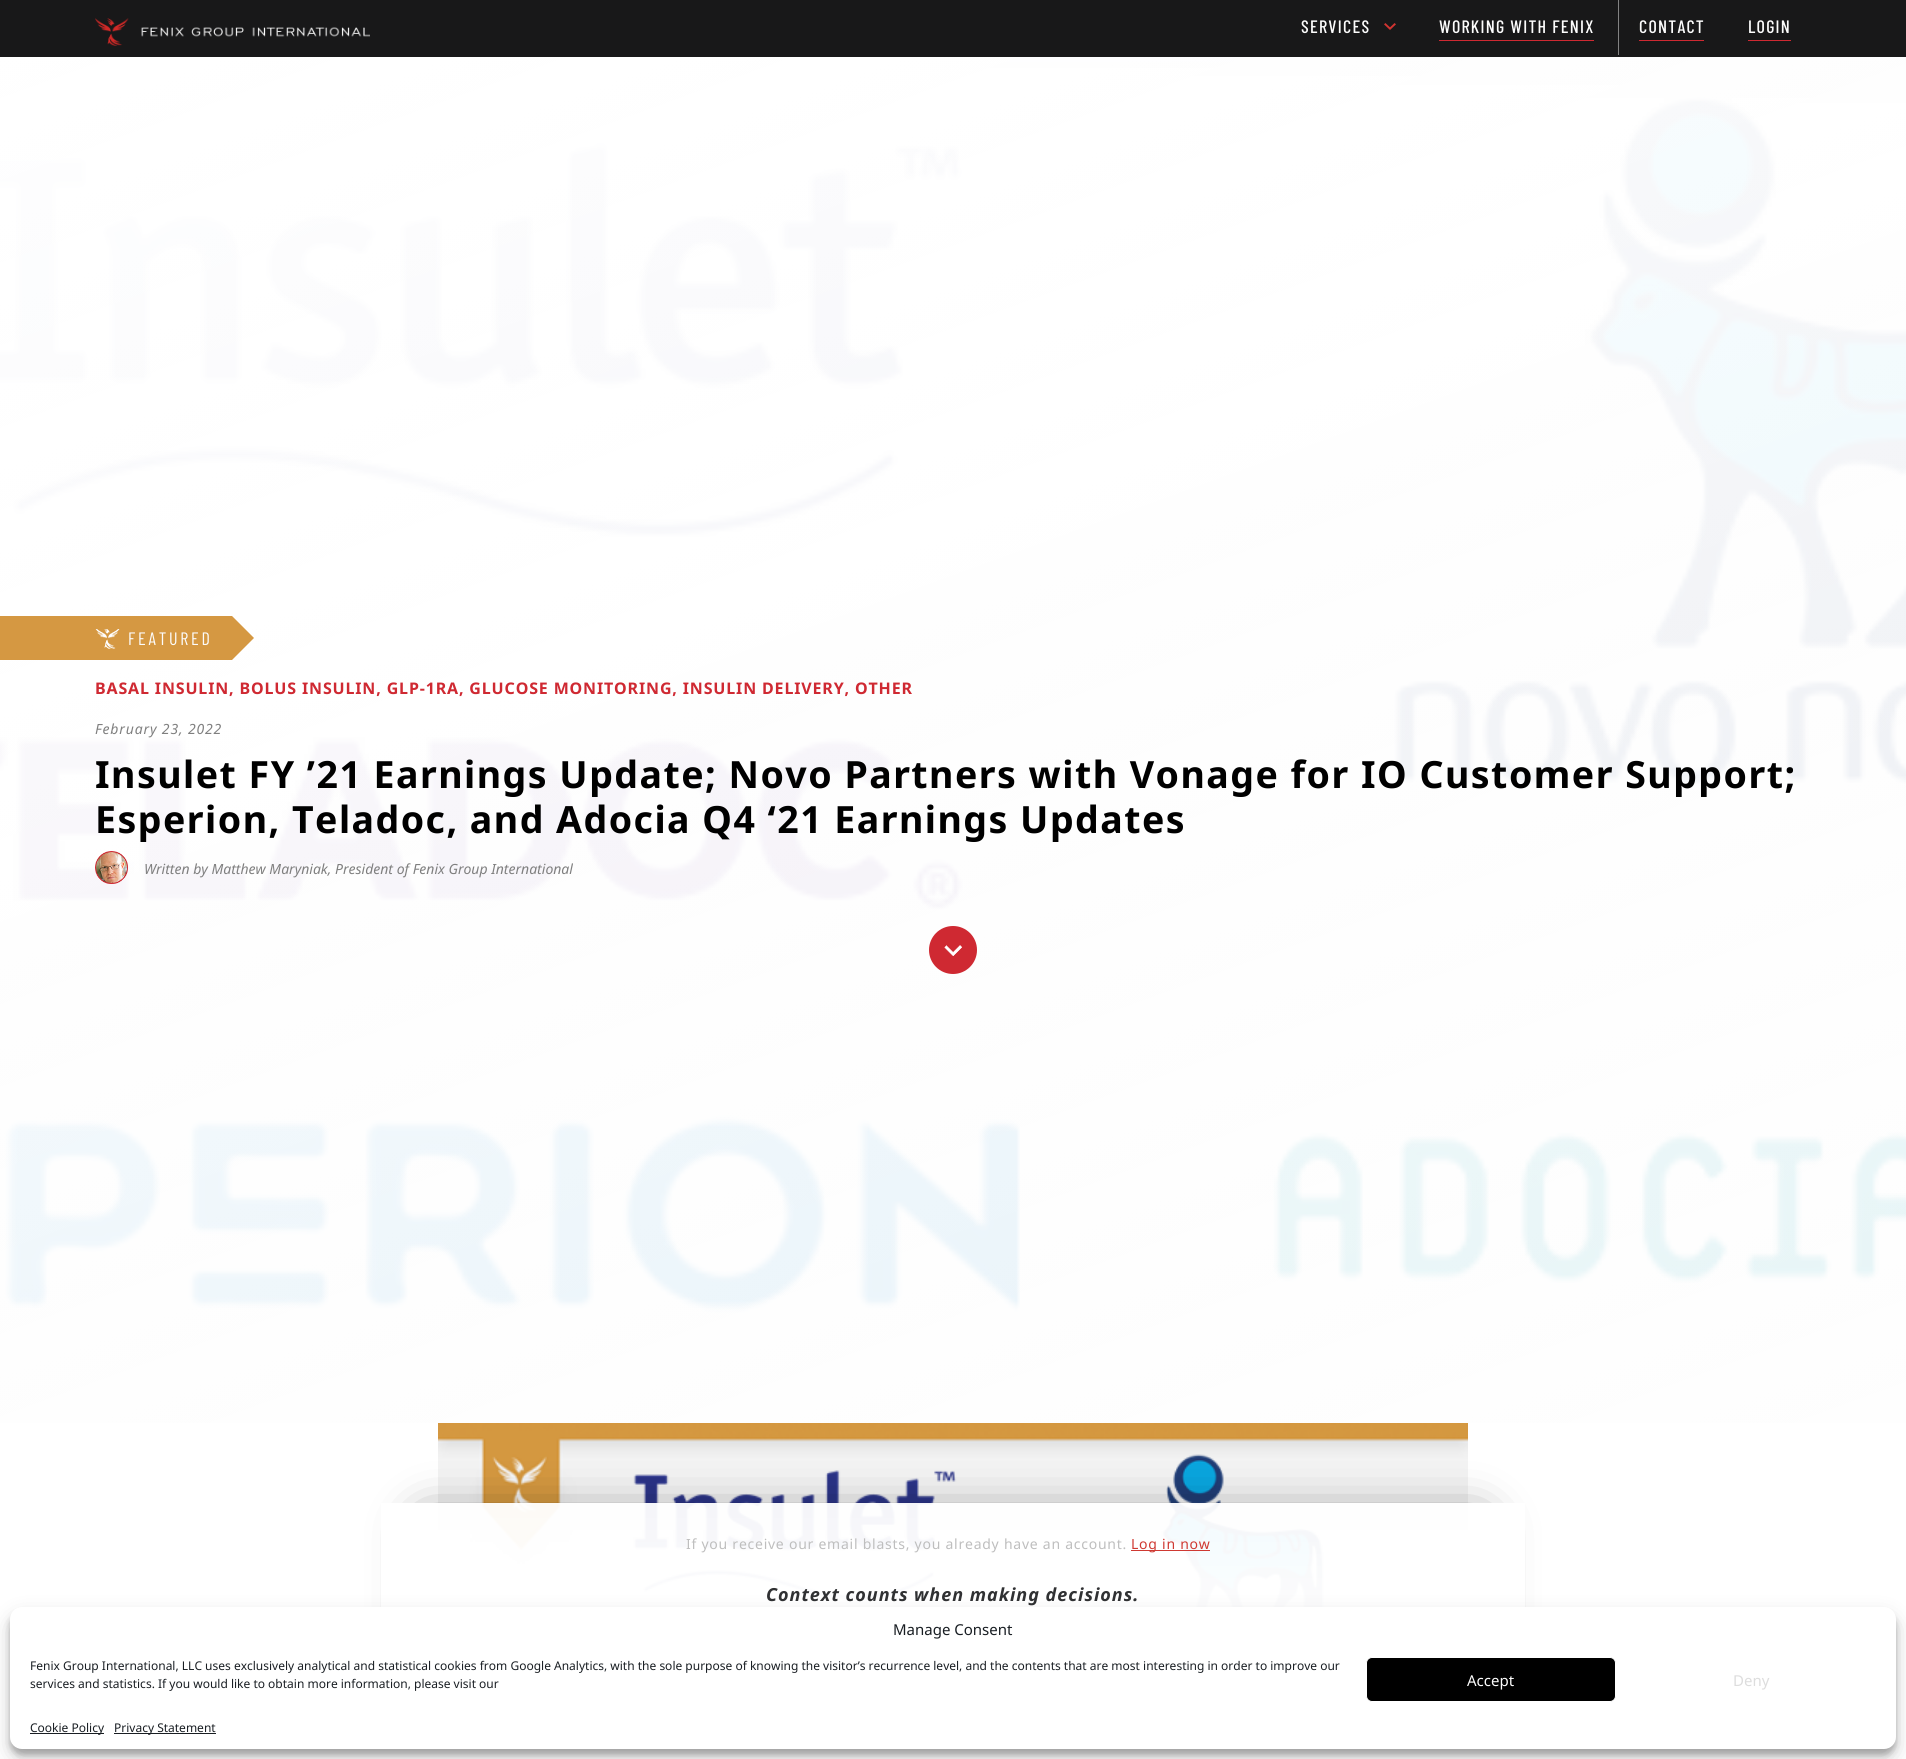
#include <cairo.h>
#include <math.h>
#include <stddef.h>


static void rgb(cairo_t *cr, int r, int g, int b)
{
	cairo_set_source_rgb(cr, r / 255.0, g / 255.0, b / 255.0);
}

static void face(cairo_t *cr, const char *family, double size, int italic, int bold)
{
	cairo_select_font_face(cr, family, italic ? CAIRO_FONT_SLANT_ITALIC : CAIRO_FONT_SLANT_NORMAL,
		bold ? CAIRO_FONT_WEIGHT_BOLD : CAIRO_FONT_WEIGHT_NORMAL);
	cairo_set_font_size(cr, size);
}

static void label(cairo_t *cr, double x, double y, const char *s)
{
	cairo_move_to(cr, x, y);
	cairo_show_text(cr, s);
}

static void tracked(cairo_t *cr, double x, double y, const char *s, double letter, double word)
{
	cairo_move_to(cr, x, y);
	while (*s) {
		char ch[5] = {0};
		int n = 0;
		do ch[n++] = *s++; while ((*s & 0xC0) == 0x80);
		cairo_show_text(cr, ch);
		cairo_rel_move_to(cr, letter + word * (*ch == ' '), 0);
	}
}

static void rect(cairo_t *cr, double x, double y, double w, double h)
{
	cairo_rectangle(cr, x, y, w, h);
	cairo_fill(cr);
}

static void rrect(cairo_t *cr, double x, double y, double w, double h, double r)
{
	cairo_new_sub_path(cr);
	cairo_arc(cr, x + w - r, y + h - r, r, 0, M_PI / 2);
	cairo_arc(cr, x + r, y + h - r, r, M_PI / 2, M_PI);
	cairo_arc(cr, x + r, y + r, r, M_PI, 1.5 * M_PI);
	cairo_arc(cr, x + w - r, y + r, r, 1.5 * M_PI, 2 * M_PI);
	cairo_close_path(cr);
}

static void soft_shadow(cairo_t *cr, double x, double y, double w, double h, double r, double blur, double alpha)
{
	cairo_push_group_with_content(cr, CAIRO_CONTENT_ALPHA);
	cairo_set_operator(cr, CAIRO_OPERATOR_SOURCE);
	for (int i = 15; i >= -15 && fmin(w, h) + blur * i / 3 > 0; i -= 2) {
		double e = blur * i / 6;
		cairo_set_source_rgba(cr, 0, 0, 0, alpha * erfc((i - 1) / 8.5) / 2);
		rrect(cr, x - e, y - e, w + 2 * e, h + 2 * e, fmax(0, fmin(r + e + blur * .6, fmin(w, h) / 2 + e)));
		cairo_fill(cr);
	}
	cairo_pattern_t *soft = cairo_pop_group(cr);
	cairo_mask(cr, soft);
	cairo_pattern_destroy(soft);
}

static void image(cairo_t *cr, const char *path, double x, double y, double w, double h)
{
	cairo_surface_t *image = cairo_image_surface_create_from_png(path);
	cairo_save(cr);
	cairo_set_source_surface(cr, image, x, y);
	cairo_rectangle(cr, x, y, w, h);
	cairo_fill(cr);
	cairo_restore(cr);
	cairo_surface_destroy(image);
}

static void draw(cairo_t *cr) {
	cairo_pattern_t *gradient;
	rgb(cr, 255, 255, 255);
	cairo_paint(cr);
	rgb(cr, 24, 24, 25);
	rect(cr, 0, 0, 1906, 57);
	image(cr, "image0.png", 95, 18, 275, 28);
	face(cr, "Barlow Condensed Medium", 18, 0, 0);
	rgb(cr, 252, 252, 252);
	tracked(cr, 1301, 33, "SERVICES", 1.25, 0);
	image(cr, "image1.png", 1384, 23, 12, 7);
	rgb(cr, 207, 41, 50);
	rect(cr, 1439, 40, 155, 1);
	rgb(cr, 252, 252, 252);
	tracked(cr, 1439, 33, "WORKING WITH FENIX", 1.25, 0);
	rgb(cr, 130, 130, 130);
	rect(cr, 1618, 0, 1, 55);
	rgb(cr, 207, 41, 50);
	rect(cr, 1639, 40, 65, 1);
	rgb(cr, 252, 252, 252);
	tracked(cr, 1639, 33, "CONTACT", 1.25, 0);
	rgb(cr, 207, 41, 50);
	rect(cr, 1748, 40, 43, 1);
	rgb(cr, 252, 252, 252);
	tracked(cr, 1748, 33, "LOGIN", 1.25, 0);
	image(cr, "image2.png", 0, 57, 1906, 1366);
	rgb(cr, 213, 152, 66);
	rect(cr, 0, 616, 232, 44);
	image(cr, "image3.png", 95, 629, 25, 20);
	face(cr, "Barlow Condensed", 18, 0, 0);
	rgb(cr, 252, 252, 252);
	tracked(cr, 128, 645, "FEATURED", 2.75, 0);
	rgb(cr, 213, 152, 66);
	cairo_new_path(cr);
	cairo_move_to(cr, 232, 660);
	cairo_line_to(cr, 232, 616);
	cairo_line_to(cr, 254, 638);
	cairo_close_path(cr);
	cairo_fill(cr);
	face(cr, "Noto Sans", 16, 0, 1);
	rgb(cr, 207, 41, 50);
	tracked(cr, 95, 694, "BASAL INSULIN, BOLUS INSULIN, GLP-1RA, GLUCOSE MONITORING, INSULIN DELIVERY, OTHER", 0.85, 0);
	face(cr, "Noto Sans", 14, 1, 0);
	rgb(cr, 127, 127, 127);
	tracked(cr, 95, 734, "February 23, 2022", 0.85, 0);
	face(cr, "Noto Sans", 37.5, 0, 1);
	rgb(cr, 0, 0, 0);
	tracked(cr, 95, 788, "Insulet FY ’21 Earnings Update; Novo Partners with Vonage for IO Customer Support;", 1.48, 0);
	tracked(cr, 95, 833, "Esperion, Teladoc, and Adocia Q4 ‘21 Earnings Updates", 1.48, 0);
	image(cr, "image4.png", 95, 851, 33, 33);
	face(cr, "Noto Sans", 14, 1, 0);
	rgb(cr, 127, 127, 127);
	label(cr, 144, 874, "Written by Matthew Maryniak, President of Fenix Group International");
	rgb(cr, 207, 41, 50);
	cairo_new_path(cr);
	cairo_arc(cr, 953, 950, 24, 0, 2 * M_PI);
	cairo_fill(cr);
	image(cr, "image5.png", 944, 945, 18, 11);
	image(cr, "image6.png", 438, 1423, 1030, 184);
	cairo_save(cr);
	cairo_set_fill_rule(cr, CAIRO_FILL_RULE_EVEN_ODD);
	cairo_new_path(cr);
	cairo_move_to(cr, 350, 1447);
	cairo_line_to(cr, 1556, 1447);
	cairo_line_to(cr, 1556, 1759);
	cairo_line_to(cr, 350, 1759);
	cairo_close_path(cr);
	cairo_move_to(cr, 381, 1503);
	cairo_line_to(cr, 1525, 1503);
	cairo_line_to(cr, 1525, 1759);
	cairo_line_to(cr, 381, 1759);
	cairo_close_path(cr);
	cairo_clip(cr);
	rgb(cr, 0, 0, 0);
	soft_shadow(cr, 426, 1523, 1054, 166, 0, 25, 0.65);
	cairo_restore(cr);
	gradient = cairo_pattern_create_linear(953, 1503, 953, 1759);
	cairo_pattern_add_color_stop_rgba(gradient, 0, 1, 1, 1, 0.85);
	cairo_pattern_add_color_stop_rgba(gradient, 0, 1, 1, 1, 0.95);
	cairo_pattern_add_color_stop_rgba(gradient, 0.6, 1, 1, 1, 1);
	cairo_set_source(cr, gradient);
	cairo_pattern_destroy(gradient);
	rect(cr, 438, 1503, 1030, 104);
	face(cr, "Noto Sans", 14, 0, 0);
	rgb(cr, 190, 190, 190);
	tracked(cr, 686, 1549, "If you receive our email blasts, you already have an account.", 0.75, 0);
	rgb(cr, 207, 57, 50);
	rect(cr, 1131, 1550, 79, 1);
	tracked(cr, 1131, 1549, "Log in now", 0.75, 0);
	face(cr, "Noto Sans", 18, 1, 1);
	rgb(cr, 48, 49, 51);
	tracked(cr, 766, 1601, "Context counts when making decisions.", 1, 0);
	rgb(cr, 0, 0, 0);
	soft_shadow(cr, 10, 1613, 1886, 142, 12, 3, 0.23);
	soft_shadow(cr, 10, 1617, 1886, 142, 12, 10, 0.19);
	rgb(cr, 255, 255, 255);
	rrect(cr, 10, 1607, 1886, 142, 12);
	cairo_fill(cr);
	face(cr, "Noto Sans", 15, 0, 0);
	rgb(cr, 25, 30, 35);
	label(cr, 893, 1635, "Manage Consent");
	face(cr, "Noto Sans", 12, 0, 0);
	label(cr, 30, 1670, "Fenix Group International, LLC uses exclusively analytical and statistical cookies from Google Analytics, with the sole purpose of knowing the visitor’s recurrence level, and the contents that are most interesting in order to improve our");
	label(cr, 30, 1688, "services and statistics. If you would like to obtain more information, please visit our");
	rgb(cr, 0, 0, 0);
	rrect(cr, 1366.5, 1657.5, 249, 44, 5.5);
	cairo_fill_preserve(cr);
	rgb(cr, 255, 255, 255);
	cairo_set_line_width(cr, 1);
	cairo_stroke(cr);
	face(cr, "Noto Sans", 15, 0, 0);
	rgb(cr, 252, 252, 252);
	label(cr, 1467, 1686, "Accept");
	rgb(cr, 221, 221, 221);
	label(cr, 1733, 1686, "Deny");
	rgb(cr, 25, 30, 35);
	rect(cr, 30, 1733, 74, 1);
	face(cr, "Noto Sans", 12, 0, 0);
	label(cr, 30, 1732, "Cookie Policy");
	rect(cr, 114, 1733, 102, 1);
	label(cr, 114, 1732, "Privacy Statement");
}

int main(void) {
	cairo_surface_t *surface = cairo_image_surface_create(CAIRO_FORMAT_RGB24, 1906, 1759);
	cairo_t *cr = cairo_create(surface);
	cairo_font_options_t *options = cairo_font_options_create();
	cairo_font_options_set_hint_metrics(options, CAIRO_HINT_METRICS_OFF);
	cairo_font_options_set_hint_style(options, CAIRO_HINT_STYLE_NONE);
	cairo_set_font_options(cr, options);
	cairo_set_miter_limit(cr, 4);
	draw(cr);
	cairo_surface_write_to_png(surface, "render.png");
	cairo_font_options_destroy(options);
	cairo_destroy(cr);
	cairo_surface_destroy(surface);
	return 0;
}
